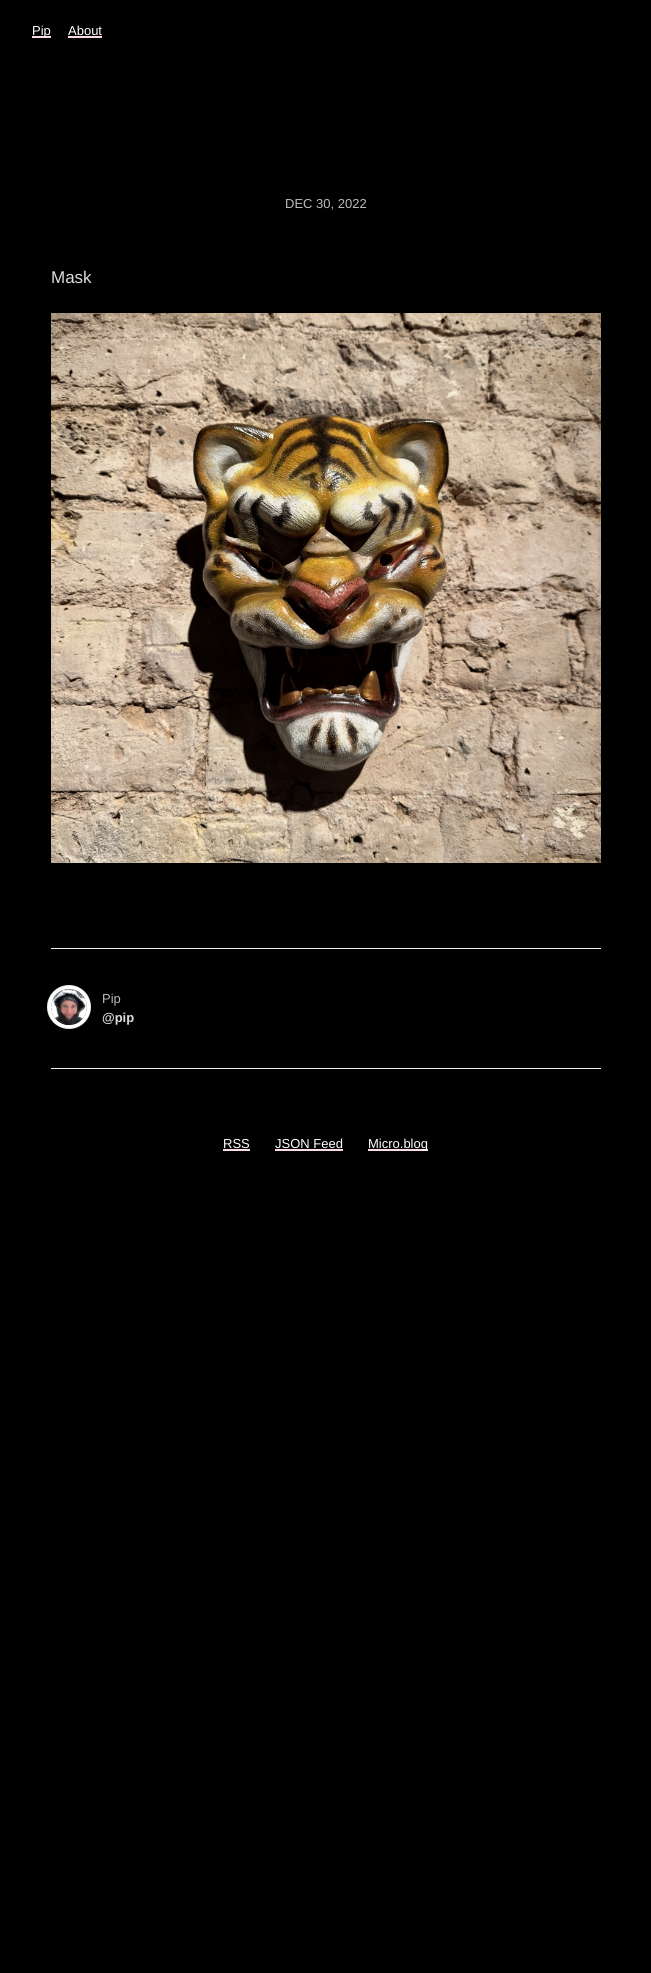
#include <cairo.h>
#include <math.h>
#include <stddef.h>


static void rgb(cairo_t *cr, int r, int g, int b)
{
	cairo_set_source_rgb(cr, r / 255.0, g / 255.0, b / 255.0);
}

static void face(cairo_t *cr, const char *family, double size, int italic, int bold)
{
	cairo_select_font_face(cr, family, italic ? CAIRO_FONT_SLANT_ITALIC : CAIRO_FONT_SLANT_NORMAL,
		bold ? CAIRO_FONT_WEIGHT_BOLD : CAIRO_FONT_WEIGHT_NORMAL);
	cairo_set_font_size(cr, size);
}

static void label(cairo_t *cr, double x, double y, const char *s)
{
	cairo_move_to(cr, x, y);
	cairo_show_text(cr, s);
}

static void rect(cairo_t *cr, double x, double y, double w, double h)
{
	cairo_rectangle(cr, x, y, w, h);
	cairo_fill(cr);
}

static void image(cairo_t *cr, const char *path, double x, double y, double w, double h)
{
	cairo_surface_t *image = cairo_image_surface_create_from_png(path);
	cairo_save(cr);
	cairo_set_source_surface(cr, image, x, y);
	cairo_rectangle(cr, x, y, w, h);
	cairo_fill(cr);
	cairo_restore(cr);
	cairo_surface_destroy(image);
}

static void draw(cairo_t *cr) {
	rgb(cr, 0, 0, 0);
	cairo_paint(cr);
	rgb(cr, 252, 218, 233);
	rect(cr, 32, 36, 19, 2);
	face(cr, "Liberation Sans", 13, 0, 0);
	rgb(cr, 255, 255, 255);
	label(cr, 32, 35, "Pip");
	label(cr, 68, 35, "About");
	rgb(cr, 252, 218, 233);
	rect(cr, 68, 36, 34, 2);
	rgb(cr, 187, 187, 187);
	label(cr, 285, 208, "DEC 30, 2022");
	face(cr, "Liberation Sans", 17, 0, 0);
	rgb(cr, 221, 221, 221);
	label(cr, 51, 283, "Mask");
	image(cr, "image0.png", 51, 313, 550, 550);
	rgb(cr, 238, 238, 238);
	rect(cr, 51, 948, 550, 1);
	rect(cr, 51, 1068, 550, 1);
	cairo_arc(cr, 69, 1007, 20, 0, 2 * M_PI);
	cairo_set_line_width(cr, 4);
	cairo_stroke(cr);
	cairo_arc(cr, 69, 1007, 19.5, 0, 2 * M_PI);
	rgb(cr, 255, 255, 255);
	cairo_set_line_width(cr, 3);
	cairo_stroke(cr);
	image(cr, "image1.png", 51, 989, 36, 36);
	face(cr, "Liberation Sans", 13, 0, 0);
	rgb(cr, 187, 187, 187);
	label(cr, 102, 1003, "Pip");
	face(cr, "Liberation Sans", 13, 0, 1);
	rgb(cr, 221, 221, 221);
	label(cr, 102, 1022, "@pip");
	face(cr, "Liberation Sans", 13, 0, 0);
	rgb(cr, 255, 255, 255);
	label(cr, 223, 1148, "RSS");
	rgb(cr, 252, 218, 233);
	rect(cr, 223, 1149, 27, 2);
	rgb(cr, 255, 255, 255);
	label(cr, 275, 1148, "JSON Feed");
	rgb(cr, 252, 218, 233);
	rect(cr, 275, 1149, 68, 2);
	rect(cr, 368, 1149, 60, 2);
	rgb(cr, 255, 255, 255);
	label(cr, 368, 1148, "Micro.blog");
}

int main(void) {
	cairo_surface_t *surface = cairo_image_surface_create(CAIRO_FORMAT_RGB24, 651, 1973);
	cairo_t *cr = cairo_create(surface);
	cairo_font_options_t *options = cairo_font_options_create();
	cairo_font_options_set_hint_metrics(options, CAIRO_HINT_METRICS_OFF);
	cairo_font_options_set_hint_style(options, CAIRO_HINT_STYLE_NONE);
	cairo_set_font_options(cr, options);
	cairo_set_miter_limit(cr, 4);
	draw(cr);
	cairo_surface_write_to_png(surface, "render.png");
	cairo_font_options_destroy(options);
	cairo_destroy(cr);
	cairo_surface_destroy(surface);
	return 0;
}
